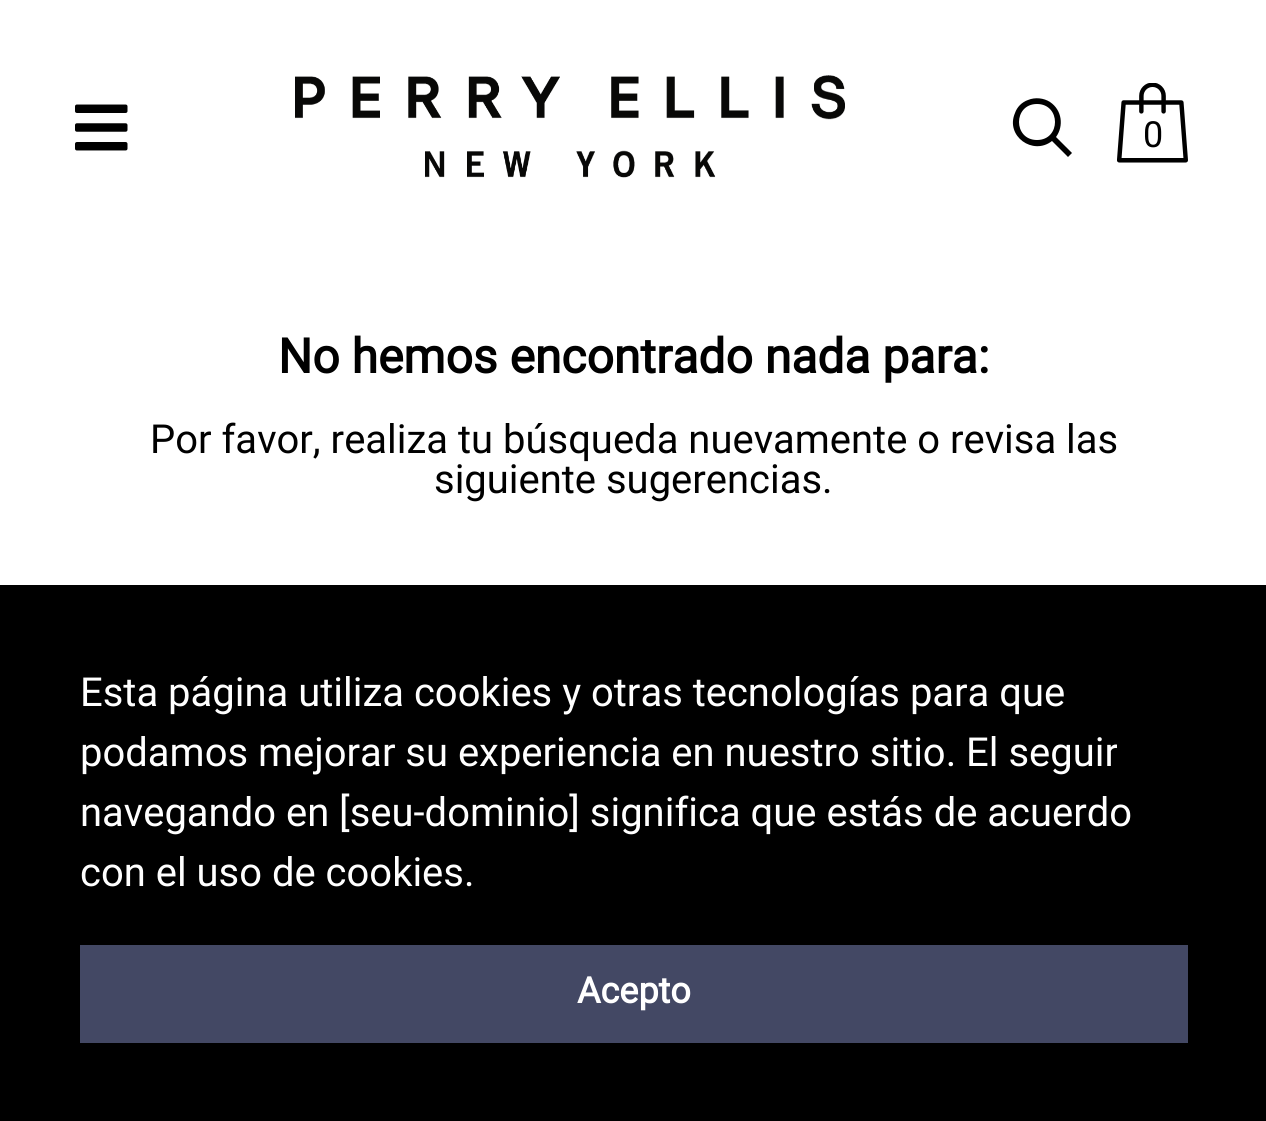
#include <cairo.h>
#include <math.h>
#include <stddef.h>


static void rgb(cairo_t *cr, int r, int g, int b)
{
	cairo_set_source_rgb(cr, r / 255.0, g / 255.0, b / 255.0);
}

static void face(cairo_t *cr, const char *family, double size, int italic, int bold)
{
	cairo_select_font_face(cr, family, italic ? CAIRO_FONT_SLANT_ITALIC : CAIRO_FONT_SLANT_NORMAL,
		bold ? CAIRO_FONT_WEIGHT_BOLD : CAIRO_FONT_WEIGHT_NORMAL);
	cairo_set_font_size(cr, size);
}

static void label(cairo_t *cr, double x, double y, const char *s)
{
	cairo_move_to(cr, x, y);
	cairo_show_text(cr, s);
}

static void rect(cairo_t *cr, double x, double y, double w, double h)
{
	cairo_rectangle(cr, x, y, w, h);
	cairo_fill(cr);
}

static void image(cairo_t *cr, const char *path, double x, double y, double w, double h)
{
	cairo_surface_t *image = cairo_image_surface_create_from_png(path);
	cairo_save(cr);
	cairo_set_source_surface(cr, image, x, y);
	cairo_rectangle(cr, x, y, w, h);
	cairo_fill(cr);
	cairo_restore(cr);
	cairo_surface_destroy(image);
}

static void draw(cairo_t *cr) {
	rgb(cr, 255, 255, 255);
	cairo_paint(cr);
	image(cr, "image0.png", 75, 104, 53, 47);
	image(cr, "image1.png", 295, 75, 550, 103);
	rgb(cr, 0, 0, 0);
	cairo_new_path(cr);
	cairo_move_to(cr, 1052, 141);
	cairo_curve_to(cr, 1033, 156, 1005, 136, 1015, 113);
	cairo_curve_to(cr, 1017, 107, 1022, 102, 1028, 100);
	cairo_curve_to(cr, 1035, 97, 1044, 98, 1050, 102);
	cairo_curve_to(cr, 1062, 110, 1064, 126, 1056, 137);
	cairo_line_to(cr, 1072, 153);
	cairo_line_to(cr, 1068, 157);
	cairo_close_path(cr);
	cairo_move_to(cr, 1037, 140);
	cairo_curve_to(cr, 1061, 140, 1061, 104, 1037, 104);
	cairo_curve_to(cr, 1013, 104, 1013, 140, 1037, 140);
	cairo_close_path(cr);
	cairo_fill(cr);
	image(cr, "image2.png", 1117, 83, 71, 80);
	face(cr, "Roboto", 36, 0, 0);
	label(cr, 1143, 147, "0");
	face(cr, "Roboto", 48, 0, 1);
	label(cr, 278, 373, "No hemos encontrado nada para:");
	face(cr, "Roboto", 40, 0, 0);
	label(cr, 150, 453, "Por favor, realiza tu búsqueda nuevamente o revisa las");
	label(cr, 434, 493, "siguiente sugerencias.");
	rect(cr, 0, 585, 1266, 536);
	rgb(cr, 255, 255, 255);
	label(cr, 80, 706, "Esta página utiliza cookies y otras tecnologías para que");
	label(cr, 80, 766, "podamos mejorar su experiencia en nuestro sitio. El seguir");
	label(cr, 80, 826, "navegando en [seu-dominio] significa que estás de acuerdo");
	label(cr, 80, 886, "con el uso de cookies.");
	rgb(cr, 67, 72, 100);
	rect(cr, 80, 945, 1108, 98);
	face(cr, "Roboto", 36, 0, 1);
	rgb(cr, 255, 255, 255);
	label(cr, 577, 1003, "Acepto");
}

int main(void) {
	cairo_surface_t *surface = cairo_image_surface_create(CAIRO_FORMAT_RGB24, 1266, 1121);
	cairo_t *cr = cairo_create(surface);
	cairo_font_options_t *options = cairo_font_options_create();
	cairo_font_options_set_hint_metrics(options, CAIRO_HINT_METRICS_OFF);
	cairo_font_options_set_hint_style(options, CAIRO_HINT_STYLE_NONE);
	cairo_set_font_options(cr, options);
	cairo_set_miter_limit(cr, 4);
	draw(cr);
	cairo_surface_write_to_png(surface, "render.png");
	cairo_font_options_destroy(options);
	cairo_destroy(cr);
	cairo_surface_destroy(surface);
	return 0;
}
